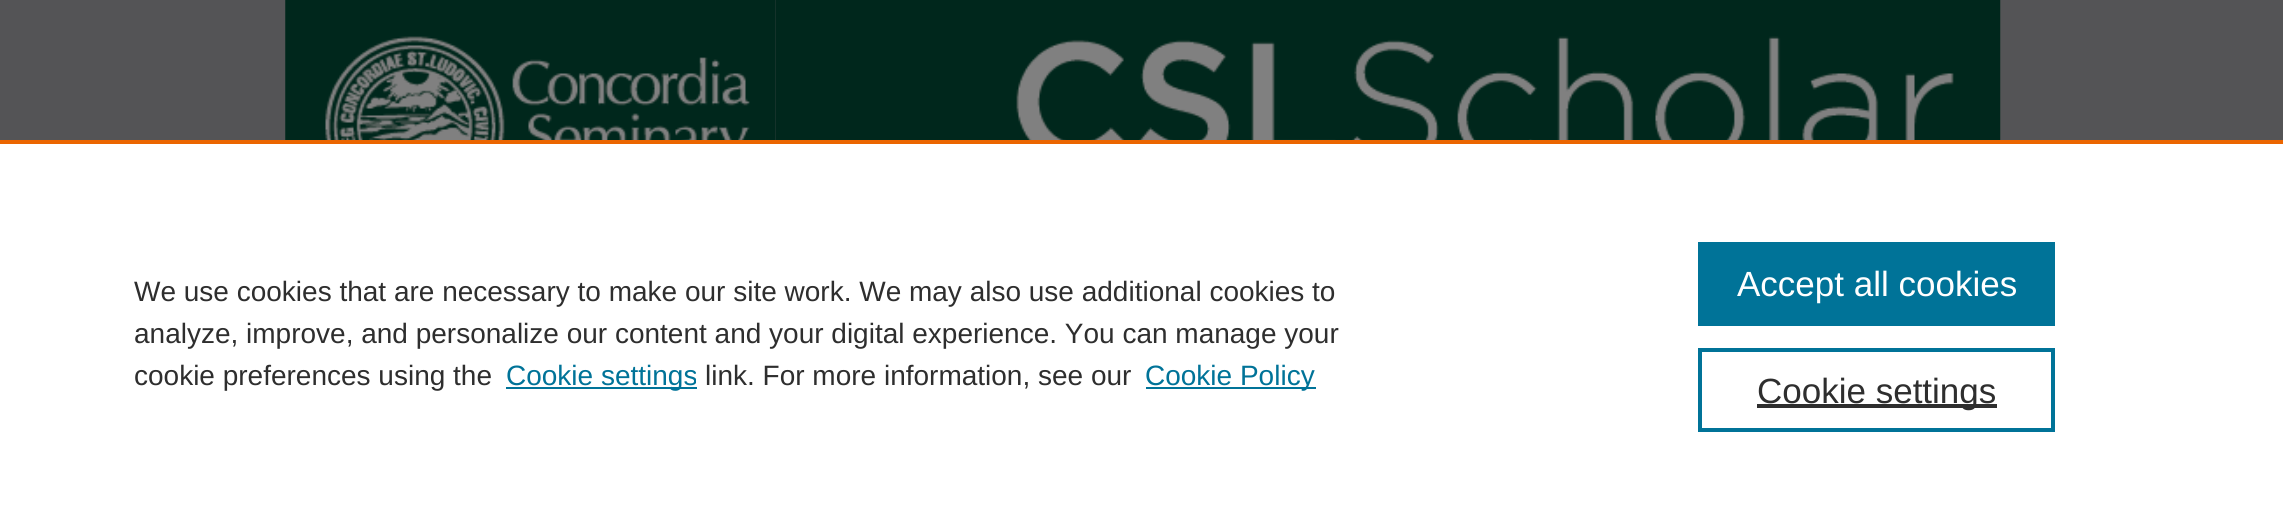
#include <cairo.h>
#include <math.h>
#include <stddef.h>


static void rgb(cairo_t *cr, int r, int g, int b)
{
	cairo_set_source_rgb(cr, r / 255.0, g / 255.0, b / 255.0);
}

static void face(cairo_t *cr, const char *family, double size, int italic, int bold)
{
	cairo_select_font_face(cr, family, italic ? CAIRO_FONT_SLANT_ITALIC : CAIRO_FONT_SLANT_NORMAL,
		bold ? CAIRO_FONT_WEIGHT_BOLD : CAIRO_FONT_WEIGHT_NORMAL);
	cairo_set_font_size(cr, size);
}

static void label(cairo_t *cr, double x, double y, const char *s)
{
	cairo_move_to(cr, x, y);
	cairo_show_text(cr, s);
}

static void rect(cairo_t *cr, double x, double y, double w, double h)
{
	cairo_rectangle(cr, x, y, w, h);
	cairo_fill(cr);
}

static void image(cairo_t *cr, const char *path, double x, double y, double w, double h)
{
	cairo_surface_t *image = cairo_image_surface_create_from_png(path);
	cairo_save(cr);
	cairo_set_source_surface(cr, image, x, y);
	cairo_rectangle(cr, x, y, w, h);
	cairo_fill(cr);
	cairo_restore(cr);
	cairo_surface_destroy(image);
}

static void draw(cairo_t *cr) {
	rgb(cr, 255, 255, 255);
	cairo_paint(cr);
	image(cr, "image0.png", 0, 0, 2283, 140);
	image(cr, "image1.png", 285, 0, 490, 140);
	image(cr, "image2.png", 775, 0, 1226, 140);
	rgb(cr, 235, 101, 0);
	rect(cr, 0, 140, 2283, 4);
	face(cr, "Liberation Sans", 28, 0, 0);
	rgb(cr, 46, 46, 46);
	label(cr, 134, 301, "We use cookies that are necessary to make our site work. We may also use additional cookies to");
	label(cr, 134, 343, "analyze, improve, and personalize our content and your digital experience. You can manage your");
	label(cr, 134, 385, "cookie preferences using the");
	rgb(cr, 0, 115, 152);
	rect(cr, 506, 387, 191, 2);
	label(cr, 506, 385, "Cookie settings");
	rgb(cr, 46, 46, 46);
	label(cr, 705, 385, "link. For more information, see our");
	rgb(cr, 0, 115, 152);
	rect(cr, 1146, 387, 170, 2);
	label(cr, 1145, 385, "Cookie Policy");
	rect(cr, 1698, 242, 357, 84);
	face(cr, "Liberation Sans", 35, 0, 0);
	rgb(cr, 255, 255, 255);
	label(cr, 1737, 296, "Accept all cookies");
	cairo_rectangle(cr, 1700, 350, 353, 80);
	rgb(cr, 0, 115, 152);
	cairo_set_line_width(cr, 4);
	cairo_stroke(cr);
	rgb(cr, 46, 46, 46);
	rect(cr, 1757, 404, 240, 4);
	label(cr, 1757, 403, "Cookie settings");
}

int main(void) {
	cairo_surface_t *surface = cairo_image_surface_create(CAIRO_FORMAT_RGB24, 2283, 525);
	cairo_t *cr = cairo_create(surface);
	cairo_font_options_t *options = cairo_font_options_create();
	cairo_font_options_set_hint_metrics(options, CAIRO_HINT_METRICS_OFF);
	cairo_font_options_set_hint_style(options, CAIRO_HINT_STYLE_NONE);
	cairo_set_font_options(cr, options);
	cairo_set_miter_limit(cr, 4);
	draw(cr);
	cairo_surface_write_to_png(surface, "render.png");
	cairo_font_options_destroy(options);
	cairo_destroy(cr);
	cairo_surface_destroy(surface);
	return 0;
}
